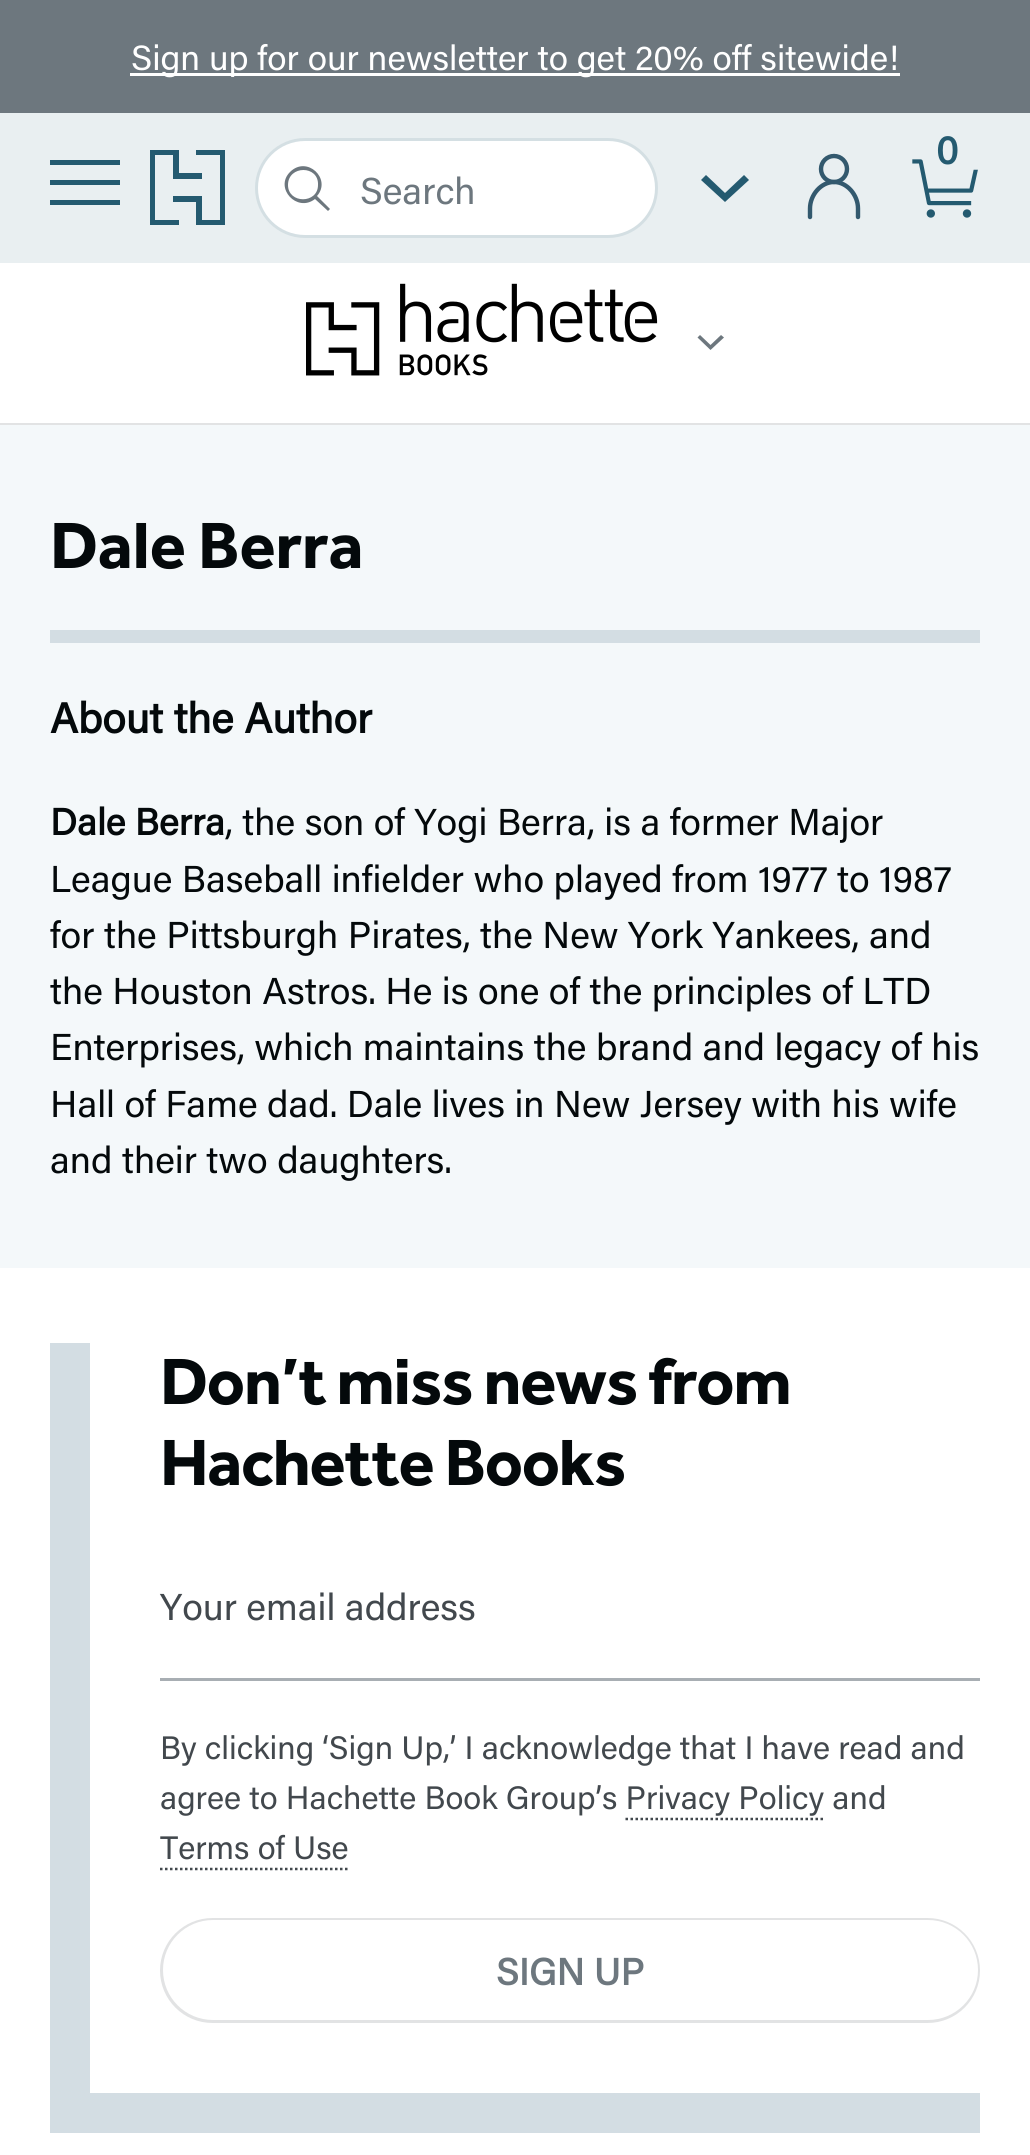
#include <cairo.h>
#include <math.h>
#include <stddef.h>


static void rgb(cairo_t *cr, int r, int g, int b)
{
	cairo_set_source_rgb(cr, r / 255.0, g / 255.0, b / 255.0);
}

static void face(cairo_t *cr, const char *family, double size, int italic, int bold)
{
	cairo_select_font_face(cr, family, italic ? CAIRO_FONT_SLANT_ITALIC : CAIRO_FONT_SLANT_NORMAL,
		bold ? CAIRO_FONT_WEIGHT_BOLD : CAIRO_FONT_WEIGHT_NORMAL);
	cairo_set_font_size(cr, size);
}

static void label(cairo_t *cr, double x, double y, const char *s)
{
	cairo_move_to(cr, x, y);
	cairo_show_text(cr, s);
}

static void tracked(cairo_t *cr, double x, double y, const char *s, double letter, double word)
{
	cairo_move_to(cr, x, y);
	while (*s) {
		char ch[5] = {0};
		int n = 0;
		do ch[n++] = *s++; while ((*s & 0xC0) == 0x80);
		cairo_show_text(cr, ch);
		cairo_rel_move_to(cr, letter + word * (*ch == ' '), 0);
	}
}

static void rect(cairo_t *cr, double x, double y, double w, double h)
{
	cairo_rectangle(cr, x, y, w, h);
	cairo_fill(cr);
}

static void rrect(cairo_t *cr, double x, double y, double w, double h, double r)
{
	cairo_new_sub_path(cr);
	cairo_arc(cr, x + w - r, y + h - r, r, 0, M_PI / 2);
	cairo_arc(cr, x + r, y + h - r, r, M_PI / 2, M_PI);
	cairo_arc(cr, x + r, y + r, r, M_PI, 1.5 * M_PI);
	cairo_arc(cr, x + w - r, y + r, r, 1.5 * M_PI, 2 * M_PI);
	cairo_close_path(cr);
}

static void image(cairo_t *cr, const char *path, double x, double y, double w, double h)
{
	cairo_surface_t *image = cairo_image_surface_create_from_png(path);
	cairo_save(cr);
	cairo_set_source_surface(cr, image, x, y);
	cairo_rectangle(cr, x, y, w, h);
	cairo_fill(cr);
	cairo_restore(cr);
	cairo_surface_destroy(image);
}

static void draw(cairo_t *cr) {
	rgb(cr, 255, 255, 255);
	cairo_paint(cr);
	rgb(cr, 109, 119, 126);
	rect(cr, 0, 0, 1030, 113);
	rgb(cr, 255, 255, 255);
	rect(cr, 130, 73, 770, 3);
	face(cr, "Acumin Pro", 35, 0, 0);
	label(cr, 131, 70, "Sign up for our newsletter to get 20% off sitewide!");
	rgb(cr, 233, 239, 241);
	rect(cr, 0, 113, 1030, 150);
	rgb(cr, 36, 90, 112);
	cairo_new_path(cr);
	cairo_move_to(cr, 50, 160);
	cairo_line_to(cr, 120, 160);
	cairo_line_to(cr, 120, 165);
	cairo_line_to(cr, 50, 165);
	cairo_close_path(cr);
	cairo_move_to(cr, 50, 180);
	cairo_line_to(cr, 120, 180);
	cairo_line_to(cr, 120, 185);
	cairo_line_to(cr, 50, 185);
	cairo_close_path(cr);
	cairo_move_to(cr, 50, 200);
	cairo_line_to(cr, 120, 200);
	cairo_line_to(cr, 120, 205);
	cairo_line_to(cr, 50, 205);
	cairo_close_path(cr);
	cairo_fill(cr);
	cairo_new_path(cr);
	cairo_move_to(cr, 225, 225);
	cairo_line_to(cr, 225, 150);
	cairo_line_to(cr, 196, 150);
	cairo_line_to(cr, 196, 155);
	cairo_line_to(cr, 220, 155);
	cairo_line_to(cr, 220, 220);
	cairo_line_to(cr, 202, 220);
	cairo_line_to(cr, 202, 196);
	cairo_line_to(cr, 173, 196);
	cairo_line_to(cr, 173, 202);
	cairo_line_to(cr, 196, 202);
	cairo_line_to(cr, 196, 225);
	cairo_close_path(cr);
	cairo_fill(cr);
	cairo_new_path(cr);
	cairo_move_to(cr, 179, 173);
	cairo_line_to(cr, 202, 173);
	cairo_line_to(cr, 202, 179);
	cairo_line_to(cr, 173, 179);
	cairo_line_to(cr, 173, 155);
	cairo_line_to(cr, 155, 155);
	cairo_line_to(cr, 155, 220);
	cairo_line_to(cr, 179, 220);
	cairo_line_to(cr, 179, 225);
	cairo_line_to(cr, 150, 225);
	cairo_line_to(cr, 150, 150);
	cairo_line_to(cr, 179, 150);
	cairo_close_path(cr);
	cairo_fill(cr);
	rgb(cr, 255, 255, 255);
	rrect(cr, 256.5, 139.5, 400, 97, 48.5);
	cairo_fill_preserve(cr);
	rgb(cr, 212, 223, 227);
	cairo_set_line_width(cr, 3);
	cairo_stroke(cr);
	rgb(cr, 109, 119, 126);
	cairo_new_path(cr);
	cairo_move_to(cr, 330, 209);
	cairo_line_to(cr, 317, 196);
	cairo_curve_to(cr, 332, 179, 307, 155, 290, 172);
	cairo_curve_to(cr, 274, 188, 297, 213, 315, 199);
	cairo_line_to(cr, 328, 211);
	cairo_close_path(cr);
	cairo_move_to(cr, 288, 185);
	cairo_curve_to(cr, 288, 165, 319, 165, 318, 185);
	cairo_curve_to(cr, 318, 204, 288, 204, 288, 185);
	cairo_close_path(cr);
	cairo_fill(cr);
	face(cr, "Acumin Pro", 37.5, 0, 0);
	label(cr, 360, 204, "Search");
	rgb(cr, 36, 90, 112);
	cairo_new_path(cr);
	cairo_move_to(cr, 725, 202);
	cairo_line_to(cr, 701, 180);
	cairo_line_to(cr, 706, 175);
	cairo_line_to(cr, 725, 193);
	cairo_line_to(cr, 744, 175);
	cairo_line_to(cr, 749, 180);
	cairo_close_path(cr);
	cairo_fill(cr);
	cairo_arc(cr, 834, 169, 13, 0, 2 * M_PI);
	rgb(cr, 51, 89, 110);
	cairo_set_line_width(cr, 4.4);
	cairo_stroke(cr);
	cairo_new_path(cr);
	cairo_move_to(cr, 858, 217);
	cairo_line_to(cr, 858, 208.5);
	cairo_curve_to(cr, 858, 195, 847, 182, 834, 182);
	cairo_curve_to(cr, 821, 182, 810, 195, 810, 208.5);
	cairo_line_to(cr, 810, 217);
	cairo_set_line_cap(cr, CAIRO_LINE_CAP_ROUND);
	cairo_stroke(cr);
	image(cr, "image0.png", 912, 159, 66, 59);
	face(cr, "Acumin Pro", 40, 0, 1);
	rgb(cr, 36, 90, 112);
	label(cr, 936, 164, "0");
	rgb(cr, 226, 227, 228);
	rect(cr, 0, 423, 1030, 2);
	image(cr, "image1.png", 306, 283, 352, 93);
	rgb(cr, 109, 119, 126);
	cairo_new_path(cr);
	cairo_move_to(cr, 710.5, 350);
	cairo_line_to(cr, 697.5, 337.5);
	cairo_line_to(cr, 700, 335);
	cairo_line_to(cr, 710.5, 345);
	cairo_line_to(cr, 721, 335);
	cairo_line_to(cr, 724, 337.5);
	cairo_close_path(cr);
	cairo_fill(cr);
	rgb(cr, 244, 248, 250);
	rect(cr, 0, 425, 1030, 843);
	rgb(cr, 211, 221, 227);
	rect(cr, 50, 630, 930, 13);
	face(cr, "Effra", 67.5, 0, 1);
	rgb(cr, 4, 9, 11);
	label(cr, 50, 568, "Dale Berra");
	face(cr, "Acumin Pro", 42.5, 0, 1);
	label(cr, 50, 733, "About the Author");
	face(cr, "Acumin Pro", 37.5, 0, 1);
	label(cr, 50, 835, "Dale Berra");
	face(cr, "Acumin Pro", 37.5, 0, 0);
	label(cr, 225, 835, ", the son of Yogi Berra, is a former Major");
	label(cr, 50, 892, "League Baseball infielder who played from 1977 to 1987");
	label(cr, 50, 948, "for the Pittsburgh Pirates, the New York Yankees, and");
	label(cr, 50, 1004, "the Houston Astros. He is one of the principles of LTD");
	label(cr, 50, 1060, "Enterprises, which maintains the brand and legacy of his");
	label(cr, 50, 1117, "Hall of Fame dad. Dale lives in New Jersey with his wife");
	label(cr, 50, 1173, "and their two daughters.");
	rgb(cr, 211, 221, 227);
	rect(cr, 90, 2093, 890, 40);
	rect(cr, 50, 1343, 40, 790);
	face(cr, "Effra", 67.5, 0, 1);
	rgb(cr, 4, 9, 11);
	tracked(cr, 160, 1404, "Don’t miss news from", -1.2, 0);
	tracked(cr, 160, 1485, "Hachette Books", -1.2, 0);
	rgb(cr, 168, 174, 179);
	rect(cr, 160, 1678, 820, 3);
	face(cr, "Acumin Pro", 37.5, 0, 0);
	rgb(cr, 66, 72, 77);
	label(cr, 160, 1620, "Your email address");
	rgb(cr, 226, 227, 228);
	rrect(cr, 160, 1918, 820, 105, 52.5);
	cairo_fill(cr);
	rgb(cr, 255, 255, 255);
	rrect(cr, 163, 1920, 815, 100, 50);
	cairo_fill(cr);
	face(cr, "Acumin Pro", 37.5, 0, 1);
	rgb(cr, 109, 119, 126);
	label(cr, 496, 1985, "SIGN UP");
	face(cr, "Acumin Pro", 32.5, 0, 0);
	rgb(cr, 66, 72, 77);
	label(cr, 160, 1759, "By clicking ‘Sign Up,’ I acknowledge that I have read and");
	label(cr, 160, 1809, "agree to Hachette Book Group’s Privacy Policy and");
	cairo_new_path(cr);
	cairo_move_to(cr, 625.5, 1819);
	cairo_line_to(cr, 824, 1819);
	cairo_set_line_width(cr, 2.5);
	cairo_set_line_cap(cr, CAIRO_LINE_CAP_BUTT);
	cairo_set_dash(cr, (double[]){2.5, 2.5}, 2, 0);
	cairo_stroke(cr);
	label(cr, 160, 1859, "Terms of Use");
	cairo_new_path(cr);
	cairo_move_to(cr, 160, 1869);
	cairo_line_to(cr, 348.5, 1869);
	cairo_stroke(cr);
}

int main(void) {
	cairo_surface_t *surface = cairo_image_surface_create(CAIRO_FORMAT_RGB24, 1030, 2155);
	cairo_t *cr = cairo_create(surface);
	cairo_font_options_t *options = cairo_font_options_create();
	cairo_font_options_set_hint_metrics(options, CAIRO_HINT_METRICS_OFF);
	cairo_font_options_set_hint_style(options, CAIRO_HINT_STYLE_NONE);
	cairo_set_font_options(cr, options);
	cairo_set_miter_limit(cr, 4);
	draw(cr);
	cairo_surface_write_to_png(surface, "render.png");
	cairo_font_options_destroy(options);
	cairo_destroy(cr);
	cairo_surface_destroy(surface);
	return 0;
}
